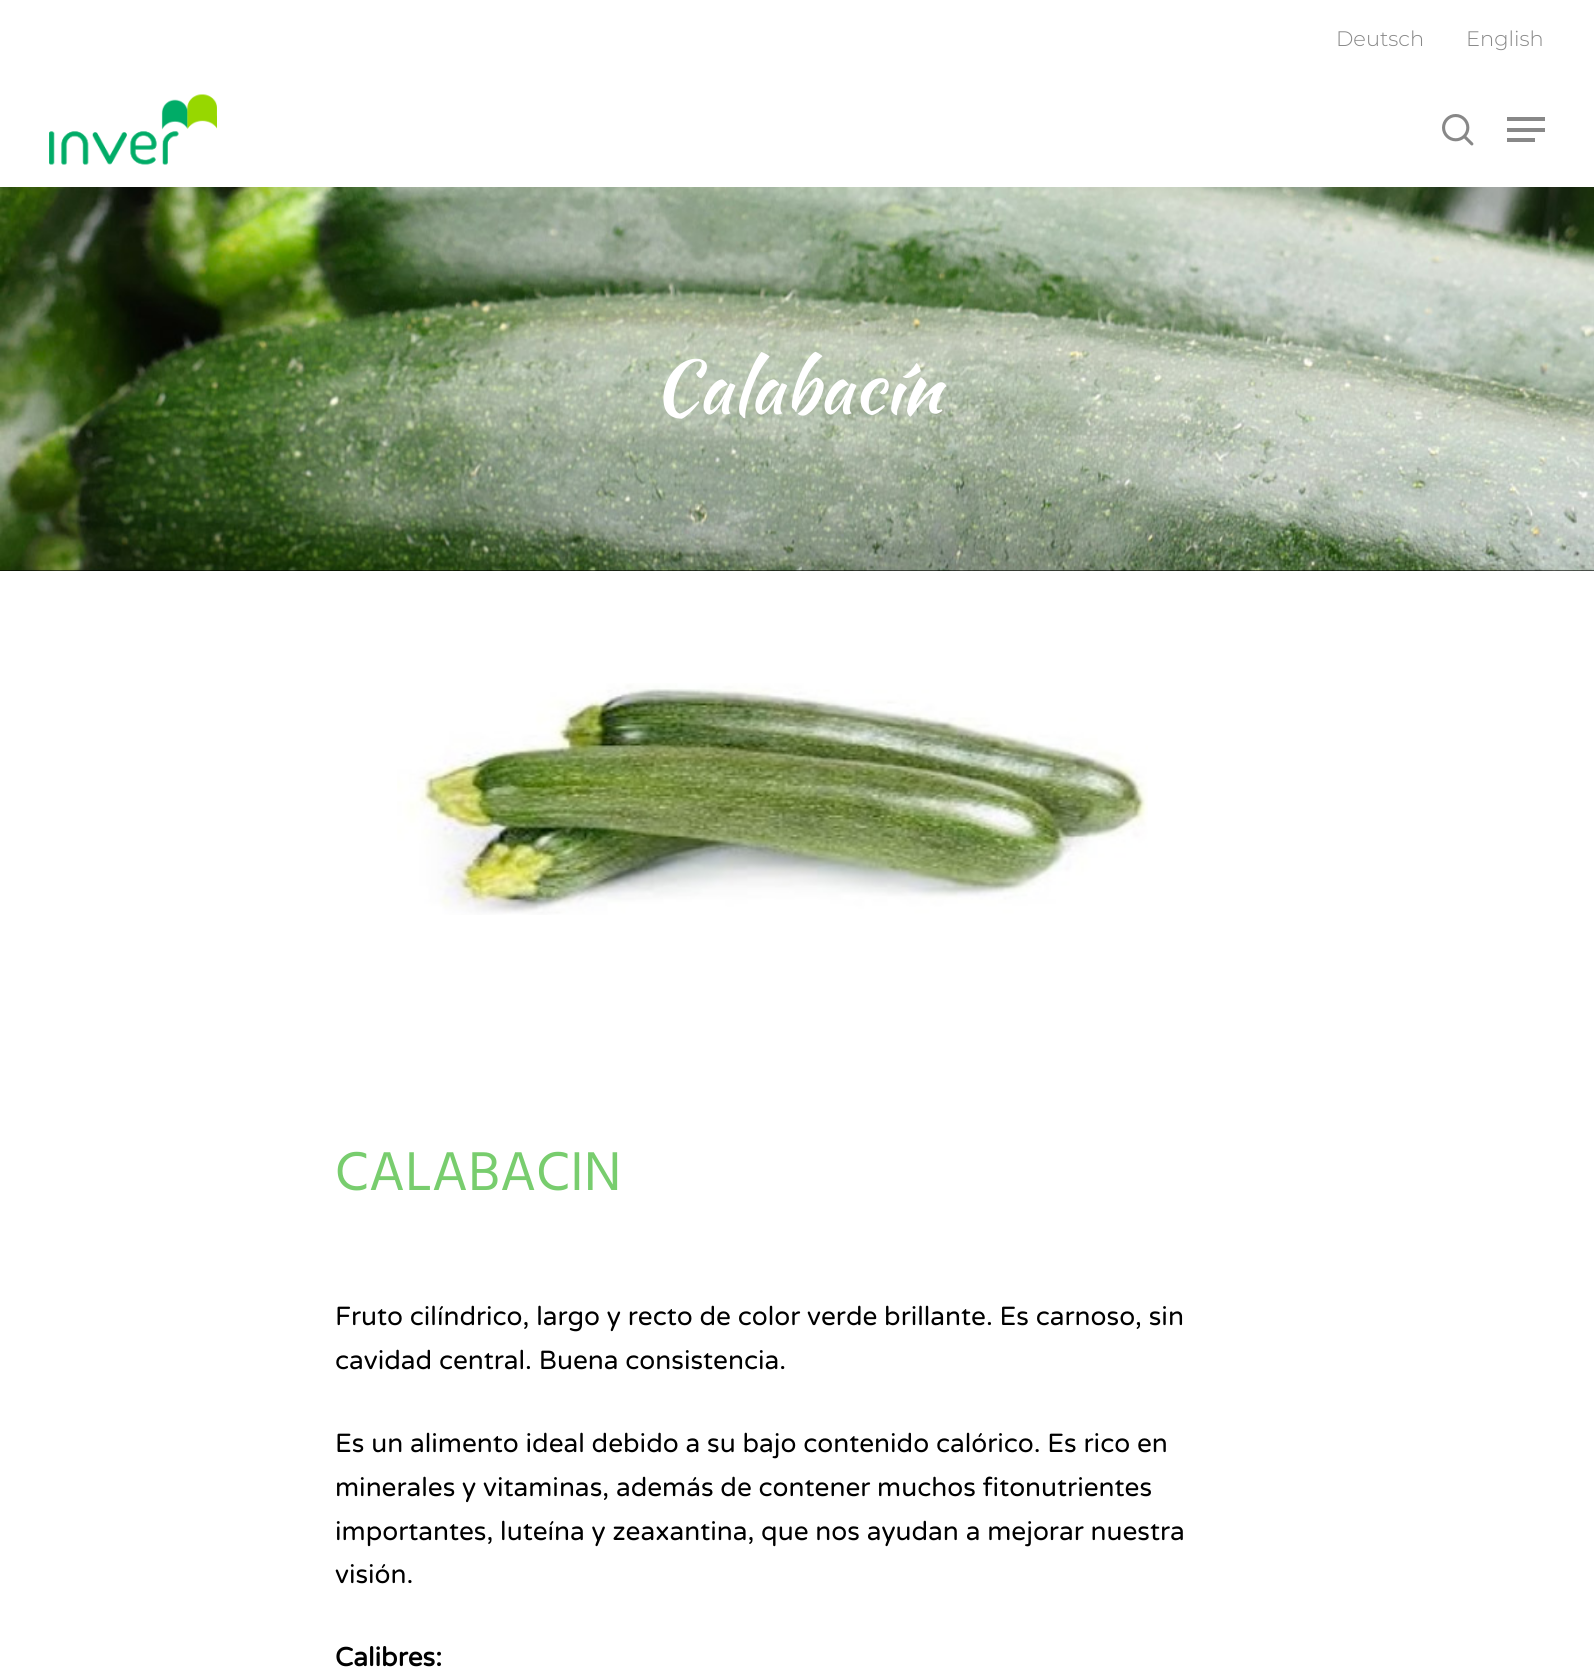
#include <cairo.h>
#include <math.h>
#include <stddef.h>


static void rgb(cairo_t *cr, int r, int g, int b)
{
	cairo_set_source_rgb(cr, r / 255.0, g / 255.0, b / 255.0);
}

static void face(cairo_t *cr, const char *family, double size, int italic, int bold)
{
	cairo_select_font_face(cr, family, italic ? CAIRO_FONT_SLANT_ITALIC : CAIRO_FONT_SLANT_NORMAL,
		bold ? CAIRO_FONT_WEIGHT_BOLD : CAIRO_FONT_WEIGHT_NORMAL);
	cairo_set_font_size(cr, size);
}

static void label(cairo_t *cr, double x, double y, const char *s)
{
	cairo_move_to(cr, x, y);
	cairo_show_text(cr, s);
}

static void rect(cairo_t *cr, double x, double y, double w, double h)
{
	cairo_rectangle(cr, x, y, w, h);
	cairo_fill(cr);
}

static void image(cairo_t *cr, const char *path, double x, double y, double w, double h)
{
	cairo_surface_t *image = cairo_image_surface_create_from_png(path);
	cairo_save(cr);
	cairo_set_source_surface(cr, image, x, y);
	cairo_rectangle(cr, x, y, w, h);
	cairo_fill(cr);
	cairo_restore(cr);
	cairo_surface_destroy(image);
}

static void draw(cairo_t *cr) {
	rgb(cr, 255, 255, 255);
	cairo_paint(cr);
	face(cr, "Montserrat Light", 21, 0, 0);
	rgb(cr, 136, 136, 136);
	label(cr, 1336, 46, "Deutsch");
	label(cr, 1466, 46, "English");
	image(cr, "image0.png", 49, 94, 168, 71);
	image(cr, "image1.png", 1442, 114, 32, 32);
	rect(cr, 1507, 117, 38, 4);
	rect(cr, 1507, 138, 28, 4);
	rect(cr, 1507, 128, 38, 4);
	rgb(cr, 0, 0, 0);
	rect(cr, 0, 570, 1594, 1);
	image(cr, "image2.png", 0, 187, 1594, 384);
	face(cr, "Kaushan Script", 73.5, 0, 0);
	rgb(cr, 255, 255, 255);
	label(cr, 653, 413, "Calabacín");
	image(cr, "image3.png", 397, 683, 751, 232);
	face(cr, "Hind", 56, 0, 0);
	rgb(cr, 120, 205, 110);
	label(cr, 335, 1190, "CALABACIN");
	face(cr, "Varela Round", 26.25, 0, 0);
	rgb(cr, 0, 0, 0);
	label(cr, 335, 1325, "Fruto cilíndrico, largo y recto de color verde brillante. Es carnoso, sin");
	label(cr, 335, 1369, "cavidad central. Buena consistencia.");
	label(cr, 335, 1452, "Es un alimento ideal debido a su bajo contenido calórico. Es rico en");
	label(cr, 335, 1496, "minerales y vitaminas, además de contener muchos fitonutrientes");
	label(cr, 335, 1540, "importantes, luteína y zeaxantina, que nos ayudan a mejorar nuestra");
	label(cr, 335, 1583, "visión.");
	face(cr, "Varela Round", 26.25, 0, 1);
	label(cr, 335, 1666, "Calibres:");
}

int main(void) {
	cairo_surface_t *surface = cairo_image_surface_create(CAIRO_FORMAT_RGB24, 1594, 1670);
	cairo_t *cr = cairo_create(surface);
	cairo_font_options_t *options = cairo_font_options_create();
	cairo_font_options_set_hint_metrics(options, CAIRO_HINT_METRICS_OFF);
	cairo_font_options_set_hint_style(options, CAIRO_HINT_STYLE_NONE);
	cairo_set_font_options(cr, options);
	cairo_set_miter_limit(cr, 4);
	draw(cr);
	cairo_surface_write_to_png(surface, "render.png");
	cairo_font_options_destroy(options);
	cairo_destroy(cr);
	cairo_surface_destroy(surface);
	return 0;
}
